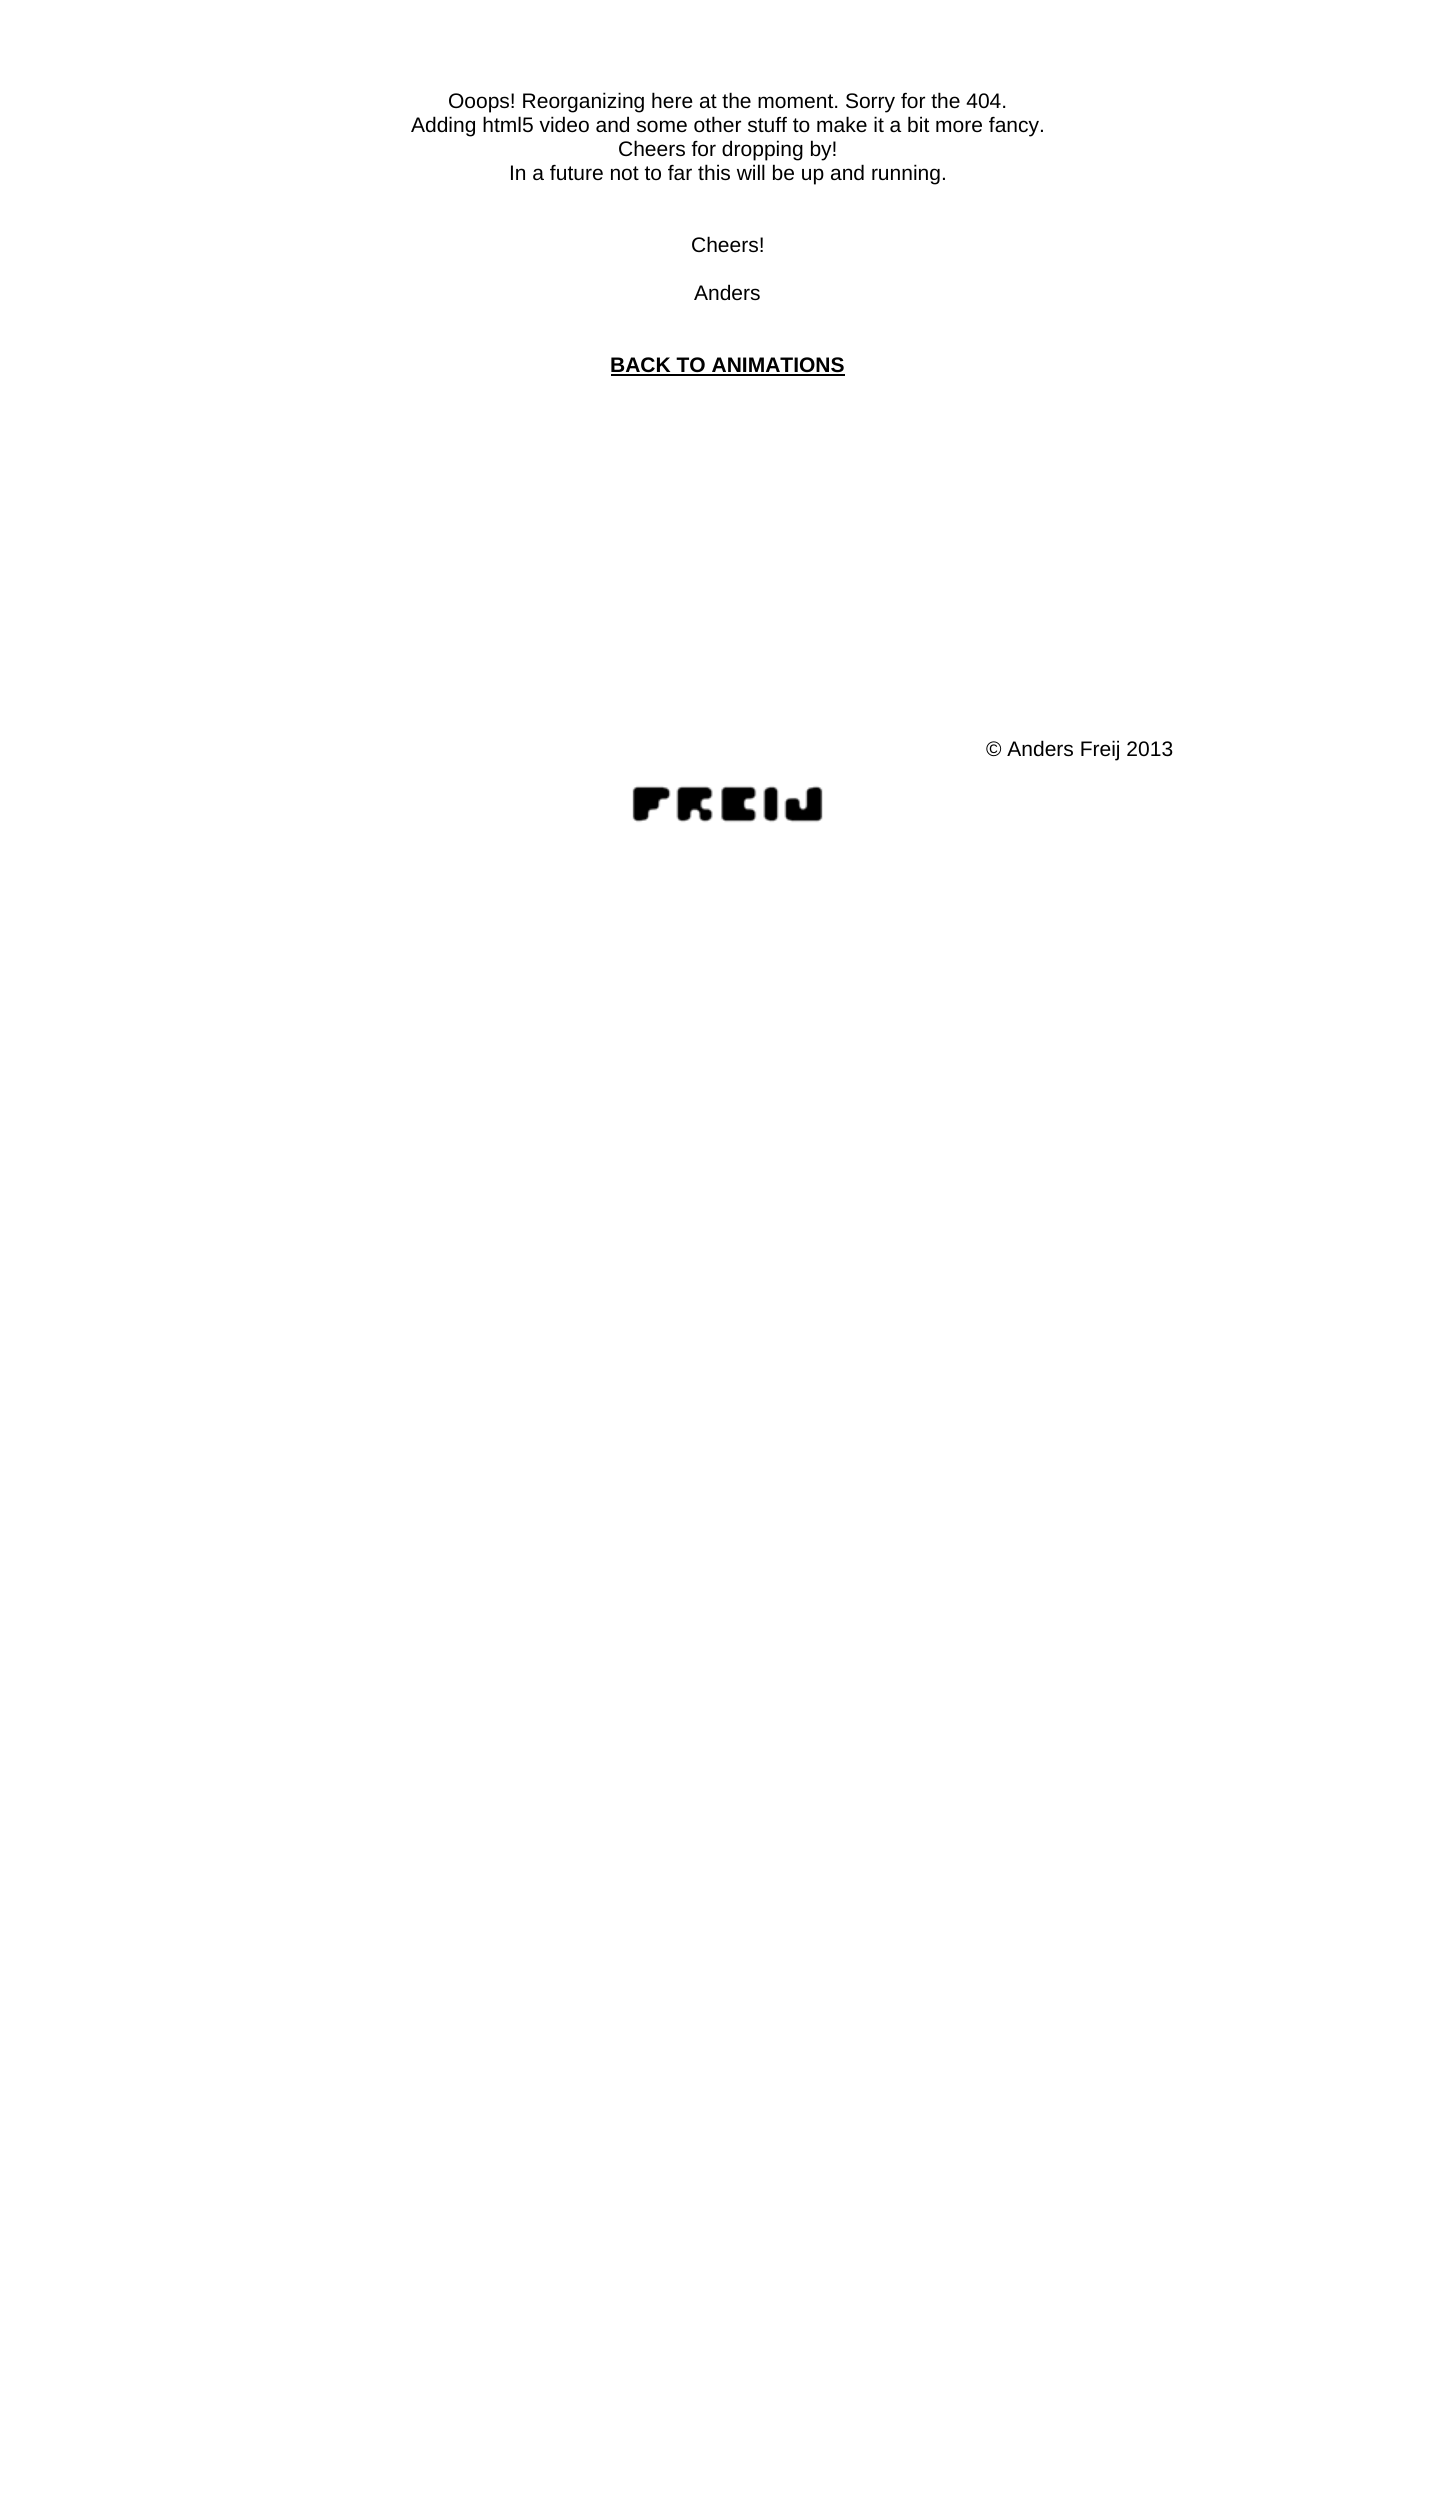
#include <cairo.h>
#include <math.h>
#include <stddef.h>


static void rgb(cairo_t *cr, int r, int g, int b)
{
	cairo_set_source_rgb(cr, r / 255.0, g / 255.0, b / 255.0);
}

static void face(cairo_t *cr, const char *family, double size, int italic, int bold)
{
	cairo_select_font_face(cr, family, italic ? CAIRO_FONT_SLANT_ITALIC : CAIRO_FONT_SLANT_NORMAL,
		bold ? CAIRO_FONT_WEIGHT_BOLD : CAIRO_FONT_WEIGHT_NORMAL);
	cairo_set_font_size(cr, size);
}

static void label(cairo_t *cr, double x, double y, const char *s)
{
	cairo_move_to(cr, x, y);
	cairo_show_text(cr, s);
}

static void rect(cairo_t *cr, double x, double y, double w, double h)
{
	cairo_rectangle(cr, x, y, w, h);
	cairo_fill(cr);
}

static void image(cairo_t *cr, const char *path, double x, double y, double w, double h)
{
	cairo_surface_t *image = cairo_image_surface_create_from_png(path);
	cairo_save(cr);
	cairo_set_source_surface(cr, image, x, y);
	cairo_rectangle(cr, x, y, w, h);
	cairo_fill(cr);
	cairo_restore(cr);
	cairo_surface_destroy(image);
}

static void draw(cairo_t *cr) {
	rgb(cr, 255, 255, 255);
	cairo_paint(cr);
	face(cr, "Liberation Sans", 21, 0, 0);
	rgb(cr, 0, 0, 0);
	label(cr, 448, 108, "Ooops! Reorganizing here at the moment. Sorry for the 404.");
	label(cr, 411, 132, "Adding html5 video and some other stuff to make it a bit more fancy.");
	label(cr, 618, 156, "Cheers for dropping by!");
	label(cr, 509, 180, "In a future not to far this will be up and running.");
	label(cr, 691, 252, "Cheers!");
	label(cr, 694, 300, "Anders");
	face(cr, "Liberation Sans", 21, 0, 1);
	label(cr, 610, 372, "BACK TO ANIMATIONS");
	rect(cr, 611, 374, 234, 2);
	face(cr, "Liberation Sans", 21, 0, 0);
	label(cr, 986, 756, "© Anders Freij 2013");
	image(cr, "image0.png", 632, 785, 191, 38);
}

int main(void) {
	cairo_surface_t *surface = cairo_image_surface_create(CAIRO_FORMAT_RGB24, 1454, 2499);
	cairo_t *cr = cairo_create(surface);
	cairo_font_options_t *options = cairo_font_options_create();
	cairo_font_options_set_hint_metrics(options, CAIRO_HINT_METRICS_OFF);
	cairo_font_options_set_hint_style(options, CAIRO_HINT_STYLE_NONE);
	cairo_set_font_options(cr, options);
	cairo_set_miter_limit(cr, 4);
	draw(cr);
	cairo_surface_write_to_png(surface, "render.png");
	cairo_font_options_destroy(options);
	cairo_destroy(cr);
	cairo_surface_destroy(surface);
	return 0;
}
